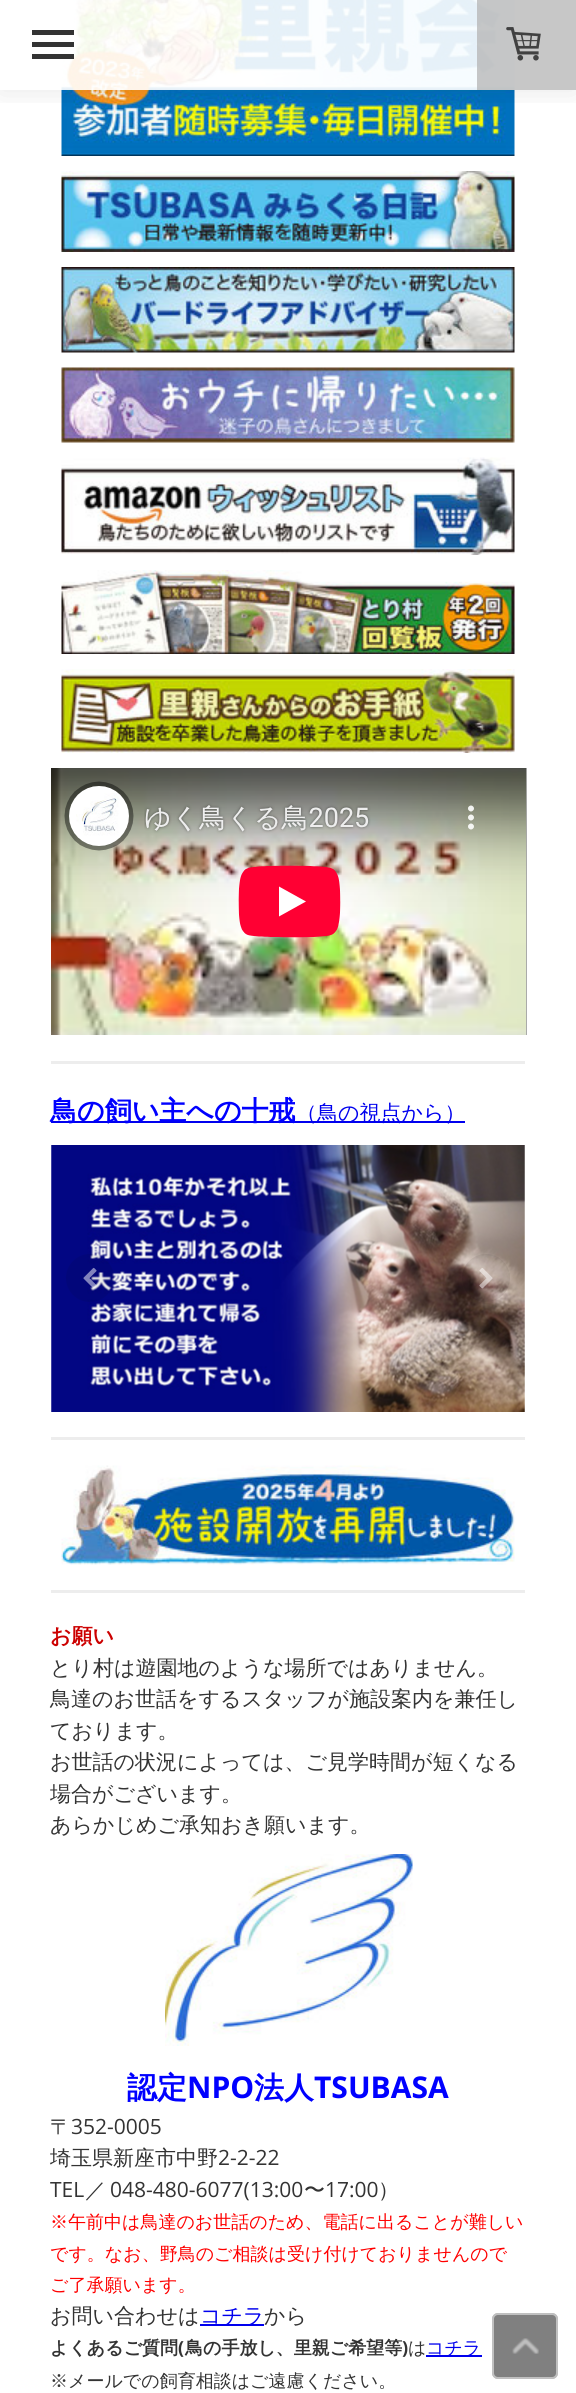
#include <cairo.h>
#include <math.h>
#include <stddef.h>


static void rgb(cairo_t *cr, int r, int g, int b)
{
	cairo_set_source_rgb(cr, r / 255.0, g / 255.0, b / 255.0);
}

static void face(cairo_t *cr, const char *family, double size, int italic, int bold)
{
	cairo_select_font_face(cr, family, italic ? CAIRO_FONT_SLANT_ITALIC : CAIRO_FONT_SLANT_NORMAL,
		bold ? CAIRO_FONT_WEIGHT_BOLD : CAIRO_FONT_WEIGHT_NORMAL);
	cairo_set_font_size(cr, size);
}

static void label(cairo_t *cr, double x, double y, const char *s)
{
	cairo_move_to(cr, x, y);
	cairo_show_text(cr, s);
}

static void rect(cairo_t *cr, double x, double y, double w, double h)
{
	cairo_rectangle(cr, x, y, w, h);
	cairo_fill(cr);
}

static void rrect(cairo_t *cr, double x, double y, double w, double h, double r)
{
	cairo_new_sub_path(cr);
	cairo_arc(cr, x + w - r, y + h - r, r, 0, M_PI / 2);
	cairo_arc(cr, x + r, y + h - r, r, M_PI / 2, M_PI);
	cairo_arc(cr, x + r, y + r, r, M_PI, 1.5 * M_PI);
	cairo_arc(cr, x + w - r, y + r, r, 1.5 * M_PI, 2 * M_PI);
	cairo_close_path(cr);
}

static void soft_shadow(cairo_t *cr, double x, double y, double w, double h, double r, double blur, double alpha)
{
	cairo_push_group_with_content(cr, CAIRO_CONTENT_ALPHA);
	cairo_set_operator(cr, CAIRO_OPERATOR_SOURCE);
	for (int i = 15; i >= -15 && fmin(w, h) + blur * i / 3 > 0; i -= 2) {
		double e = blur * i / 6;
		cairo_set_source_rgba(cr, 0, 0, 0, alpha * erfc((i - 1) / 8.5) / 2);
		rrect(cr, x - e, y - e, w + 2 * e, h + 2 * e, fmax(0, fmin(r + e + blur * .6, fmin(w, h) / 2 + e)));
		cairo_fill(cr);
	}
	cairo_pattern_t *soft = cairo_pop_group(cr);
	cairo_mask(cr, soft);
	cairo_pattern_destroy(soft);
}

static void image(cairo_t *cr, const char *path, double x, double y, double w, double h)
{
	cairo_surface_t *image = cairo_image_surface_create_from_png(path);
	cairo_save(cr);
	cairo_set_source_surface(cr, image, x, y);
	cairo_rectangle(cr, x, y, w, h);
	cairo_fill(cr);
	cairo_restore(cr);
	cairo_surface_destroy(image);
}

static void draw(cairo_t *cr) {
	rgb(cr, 255, 255, 255);
	cairo_paint(cr);
	image(cr, "image1.png", 61, 0, 454, 156);
	cairo_save(cr);
	cairo_rectangle(cr, 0, 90, 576, 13);
	cairo_clip(cr);
	rgb(cr, 0, 0, 0);
	soft_shadow(cr, 0, 0, 576, 90, 0, 15, 0.1);
	cairo_restore(cr);
	cairo_set_source_rgba(cr, 1, 1, 1, 0.9);
	rect(cr, 61, 0, 454, 90);
	rgb(cr, 51, 51, 51);
	rect(cr, 32, 42, 42, 5);
	rect(cr, 32, 30, 42, 5);
	rect(cr, 32, 54, 42, 5);
	cairo_set_source_rgba(cr, 0.706, 0.706, 0.706, 0.75);
	rect(cr, 477, 0, 99, 90);
	image(cr, "image0.png", 506, 27, 35, 34);
	image(cr, "image2.png", 61, 171, 454, 81);
	image(cr, "image3.png", 61, 267, 454, 86);
	image(cr, "image4.png", 61, 367, 454, 76);
	image(cr, "image5.png", 61, 457, 454, 98);
	image(cr, "image6.png", 61, 570, 454, 84);
	image(cr, "image7.png", 61, 669, 454, 84);
	image(cr, "image8.png", 51, 768, 476, 267);
	rgb(cr, 237, 237, 237);
	rect(cr, 51, 1061, 474, 3);
	rgb(cr, 0, 0, 238);
	rect(cr, 51, 1121, 414, 2);
	face(cr, "WenQuanYi Zen Hei", 27, 0, 1);
	rgb(cr, 0, 0, 255);
	label(cr, 50, 1120, "鳥の飼い主への十戒");
	face(cr, "WenQuanYi Zen Hei Medium", 21, 0, 0);
	rgb(cr, 0, 0, 238);
	label(cr, 296, 1120, "（鳥の視点から）");
	image(cr, "image9.png", 51, 1145, 474, 267);
	cairo_set_source_rgba(cr, 0, 0, 0, 0.07);
	cairo_arc(cr, 90, 1278, 24, 0, 2 * M_PI);
	cairo_fill(cr);
	image(cr, "image10.png", 83, 1267, 14, 22);
	cairo_arc(cr, 486, 1278, 24, 0, 2 * M_PI);
	cairo_fill(cr);
	image(cr, "image11.png", 479, 1268, 14, 21);
	rgb(cr, 237, 237, 237);
	rect(cr, 51, 1437, 474, 3);
	image(cr, "image12.png", 61, 1465, 454, 100);
	rect(cr, 51, 1590, 474, 3);
	face(cr, "WenQuanYi Zen Hei", 21, 0, 1);
	rgb(cr, 204, 0, 0);
	label(cr, 50, 1643, "お願い");
	face(cr, "WenQuanYi Zen Hei Medium", 21, 0, 0);
	rgb(cr, 51, 51, 51);
	label(cr, 50, 1675, "とり村は遊園地のような場所ではありません。");
	label(cr, 50, 1706, "鳥達のお世話をするスタッフが施設案内を兼任し");
	label(cr, 50, 1738, "ております。");
	label(cr, 50, 1769, "お世話の状況によっては、ご見学時間が短くなる");
	label(cr, 50, 1801, "場合がございます。");
	label(cr, 50, 1832, "あらかじめご承知おき願います。");
	image(cr, "image13.png", 165, 1854, 248, 192);
	face(cr, "WenQuanYi Zen Hei", 30, 0, 1);
	rgb(cr, 0, 0, 255);
	label(cr, 127, 2098, "認定");
	face(cr, "Open Sans", 30, 0, 1);
	label(cr, 187, 2098, "NPO");
	face(cr, "WenQuanYi Zen Hei", 30, 0, 1);
	label(cr, 254, 2098, "法人");
	face(cr, "Open Sans", 30, 0, 1);
	label(cr, 314, 2098, "TSUBASA");
	face(cr, "WenQuanYi Zen Hei Medium", 21, 0, 0);
	rgb(cr, 51, 51, 51);
	label(cr, 50, 2134, "〒");
	face(cr, "Open Sans", 21, 0, 0);
	label(cr, 71, 2134, "352-0005");
	face(cr, "WenQuanYi Zen Hei Medium", 21, 0, 0);
	label(cr, 50, 2165, "埼玉県新座市中野");
	face(cr, "Open Sans", 21, 0, 0);
	label(cr, 218, 2165, "2-2-22");
	label(cr, 50, 2197, "TEL");
	face(cr, "WenQuanYi Zen Hei Medium", 21, 0, 0);
	label(cr, 85, 2197, "／");
	face(cr, "Open Sans", 21, 0, 0);
	label(cr, 110, 2197, "048-480-6077(13:00");
	face(cr, "WenQuanYi Zen Hei Medium", 21, 0, 0);
	label(cr, 304, 2197, "〜");
	face(cr, "Open Sans", 21, 0, 0);
	label(cr, 325, 2197, "17:00");
	face(cr, "WenQuanYi Zen Hei Medium", 21, 0, 0);
	label(cr, 378, 2197, "）");
	face(cr, "WenQuanYi Zen Hei Medium", 18, 0, 0);
	rgb(cr, 255, 0, 0);
	label(cr, 50, 2228, "※午前中は鳥達のお世話のため、電話に出ることが難しい");
	label(cr, 50, 2260, "です。なお、野鳥のご相談は受け付けておりませんので");
	label(cr, 50, 2291, "ご了承願います。");
	face(cr, "WenQuanYi Zen Hei Medium", 21, 0, 0);
	rgb(cr, 51, 51, 51);
	label(cr, 50, 2323, "お問い合わせは");
	rgb(cr, 0, 0, 238);
	rect(cr, 200, 2324, 64, 2);
	label(cr, 200, 2323, "コチラ");
	rgb(cr, 51, 51, 51);
	label(cr, 264, 2323, "から");
	face(cr, "WenQuanYi Zen Hei", 18, 0, 1);
	label(cr, 50, 2354, "よくあるご質問");
	face(cr, "Open Sans", 18, 0, 1);
	label(cr, 178, 2354, "(");
	face(cr, "WenQuanYi Zen Hei", 18, 0, 1);
	label(cr, 185, 2354, "鳥の手放し、里親ご希望等");
	face(cr, "Open Sans", 18, 0, 1);
	label(cr, 402, 2354, ")");
	face(cr, "WenQuanYi Zen Hei Medium", 18, 0, 0);
	label(cr, 408, 2354, "は");
	rgb(cr, 0, 0, 238);
	rect(cr, 426, 2355, 56, 2);
	label(cr, 426, 2354, "コチラ");
	rgb(cr, 51, 51, 51);
	label(cr, 50, 2387, "※メールでの飼育相談はご遠慮ください。");
	rgb(cr, 128, 128, 128);
	rrect(cr, 492, 2313, 66, 66, 6);
	cairo_fill(cr);
	rrect(cr, 493, 2314, 64, 64, 5);
	cairo_set_source_rgba(cr, 1, 1, 1, 0.5);
	cairo_stroke(cr);
	image(cr, "image14.png", 512, 2338, 27, 16);
}

int main(void) {
	cairo_surface_t *surface = cairo_image_surface_create(CAIRO_FORMAT_RGB24, 576, 2393);
	cairo_t *cr = cairo_create(surface);
	cairo_font_options_t *options = cairo_font_options_create();
	cairo_font_options_set_hint_metrics(options, CAIRO_HINT_METRICS_OFF);
	cairo_font_options_set_hint_style(options, CAIRO_HINT_STYLE_NONE);
	cairo_set_font_options(cr, options);
	cairo_set_miter_limit(cr, 4);
	draw(cr);
	cairo_surface_write_to_png(surface, "render.png");
	cairo_font_options_destroy(options);
	cairo_destroy(cr);
	cairo_surface_destroy(surface);
	return 0;
}
